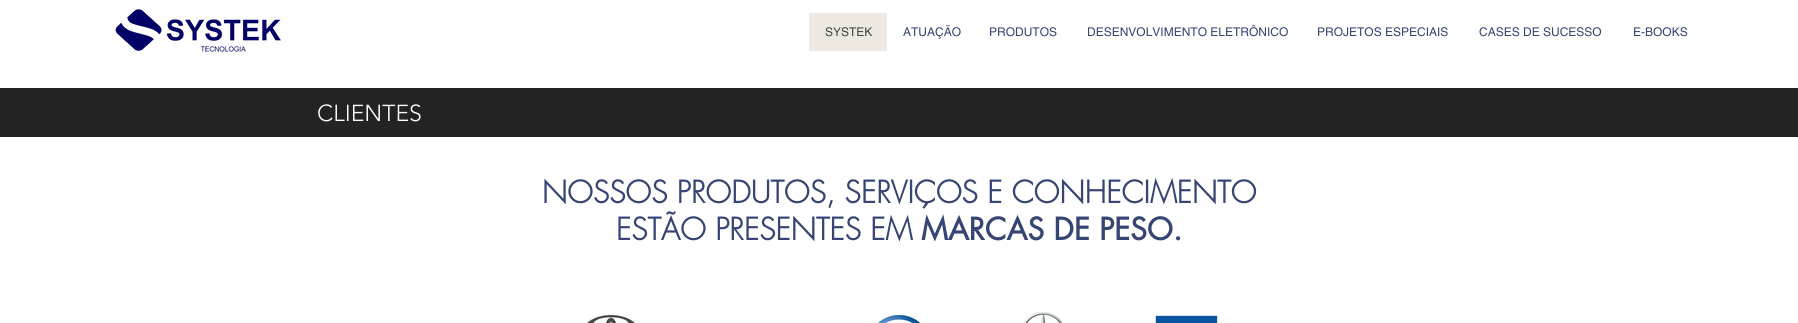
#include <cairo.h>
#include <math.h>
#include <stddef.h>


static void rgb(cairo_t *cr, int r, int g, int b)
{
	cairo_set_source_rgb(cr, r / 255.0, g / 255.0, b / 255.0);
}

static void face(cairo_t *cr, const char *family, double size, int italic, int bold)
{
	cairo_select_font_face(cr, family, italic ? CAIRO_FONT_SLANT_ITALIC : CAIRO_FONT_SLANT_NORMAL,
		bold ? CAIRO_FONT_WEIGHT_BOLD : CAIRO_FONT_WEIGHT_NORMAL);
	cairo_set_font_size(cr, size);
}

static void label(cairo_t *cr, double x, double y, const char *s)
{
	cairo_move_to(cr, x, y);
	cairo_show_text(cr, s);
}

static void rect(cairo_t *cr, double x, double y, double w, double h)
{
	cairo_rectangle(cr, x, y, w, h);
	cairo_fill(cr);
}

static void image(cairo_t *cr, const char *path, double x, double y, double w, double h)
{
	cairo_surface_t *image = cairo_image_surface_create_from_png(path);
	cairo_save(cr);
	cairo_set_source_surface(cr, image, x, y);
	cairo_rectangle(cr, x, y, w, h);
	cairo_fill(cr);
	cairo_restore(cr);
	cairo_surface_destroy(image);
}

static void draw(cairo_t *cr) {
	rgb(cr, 255, 255, 255);
	cairo_paint(cr);
	image(cr, "image0.png", 115, 9, 166, 43);
	rgb(cr, 237, 233, 225);
	rect(cr, 809, 13, 78, 38);
	face(cr, "helvetica", 12, 0, 0);
	rgb(cr, 68, 68, 68);
	label(cr, 825, 36, "SYSTEK");
	rgb(cr, 54, 69, 115);
	label(cr, 903, 36, "ATUAÇÃO");
	label(cr, 989, 36, "PRODUTOS");
	label(cr, 1087, 36, "DESENVOLVIMENTO ELETRÔNICO");
	label(cr, 1317, 36, "PROJETOS ESPECIAIS");
	label(cr, 1479, 36, "CASES DE SUCESSO");
	label(cr, 1633, 36, "E-BOOKS");
	rgb(cr, 36, 35, 35);
	rect(cr, 0, 88, 1798, 49);
	face(cr, "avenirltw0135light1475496 Light", 23, 0, 0);
	rgb(cr, 255, 255, 255);
	label(cr, 317, 121, "CLIENTES");
	face(cr, "futura", 30, 0, 1);
	rgb(cr, 54, 69, 115);
	label(cr, 542, 203, "NOSSOS PRODUTOS, SERVIÇOS E CONHECIMENTO");
	label(cr, 616, 240, "ESTÃO PRESENTES EM");
	face(cr, "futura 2", 30, 0, 1);
	label(cr, 921, 240, "MARCAS DE PESO.");
	image(cr, "image1.png", 587, 314, 48, 9);
	image(cr, "image2.png", 878, 314, 42, 9);
	image(cr, "image3.png", 1024, 312, 39, 11);
	image(cr, "image4.png", 1155, 315, 63, 8);
}

int main(void) {
	cairo_surface_t *surface = cairo_image_surface_create(CAIRO_FORMAT_RGB24, 1798, 323);
	cairo_t *cr = cairo_create(surface);
	cairo_font_options_t *options = cairo_font_options_create();
	cairo_font_options_set_hint_metrics(options, CAIRO_HINT_METRICS_OFF);
	cairo_font_options_set_hint_style(options, CAIRO_HINT_STYLE_NONE);
	cairo_set_font_options(cr, options);
	cairo_set_miter_limit(cr, 4);
	draw(cr);
	cairo_surface_write_to_png(surface, "render.png");
	cairo_font_options_destroy(options);
	cairo_destroy(cr);
	cairo_surface_destroy(surface);
	return 0;
}
